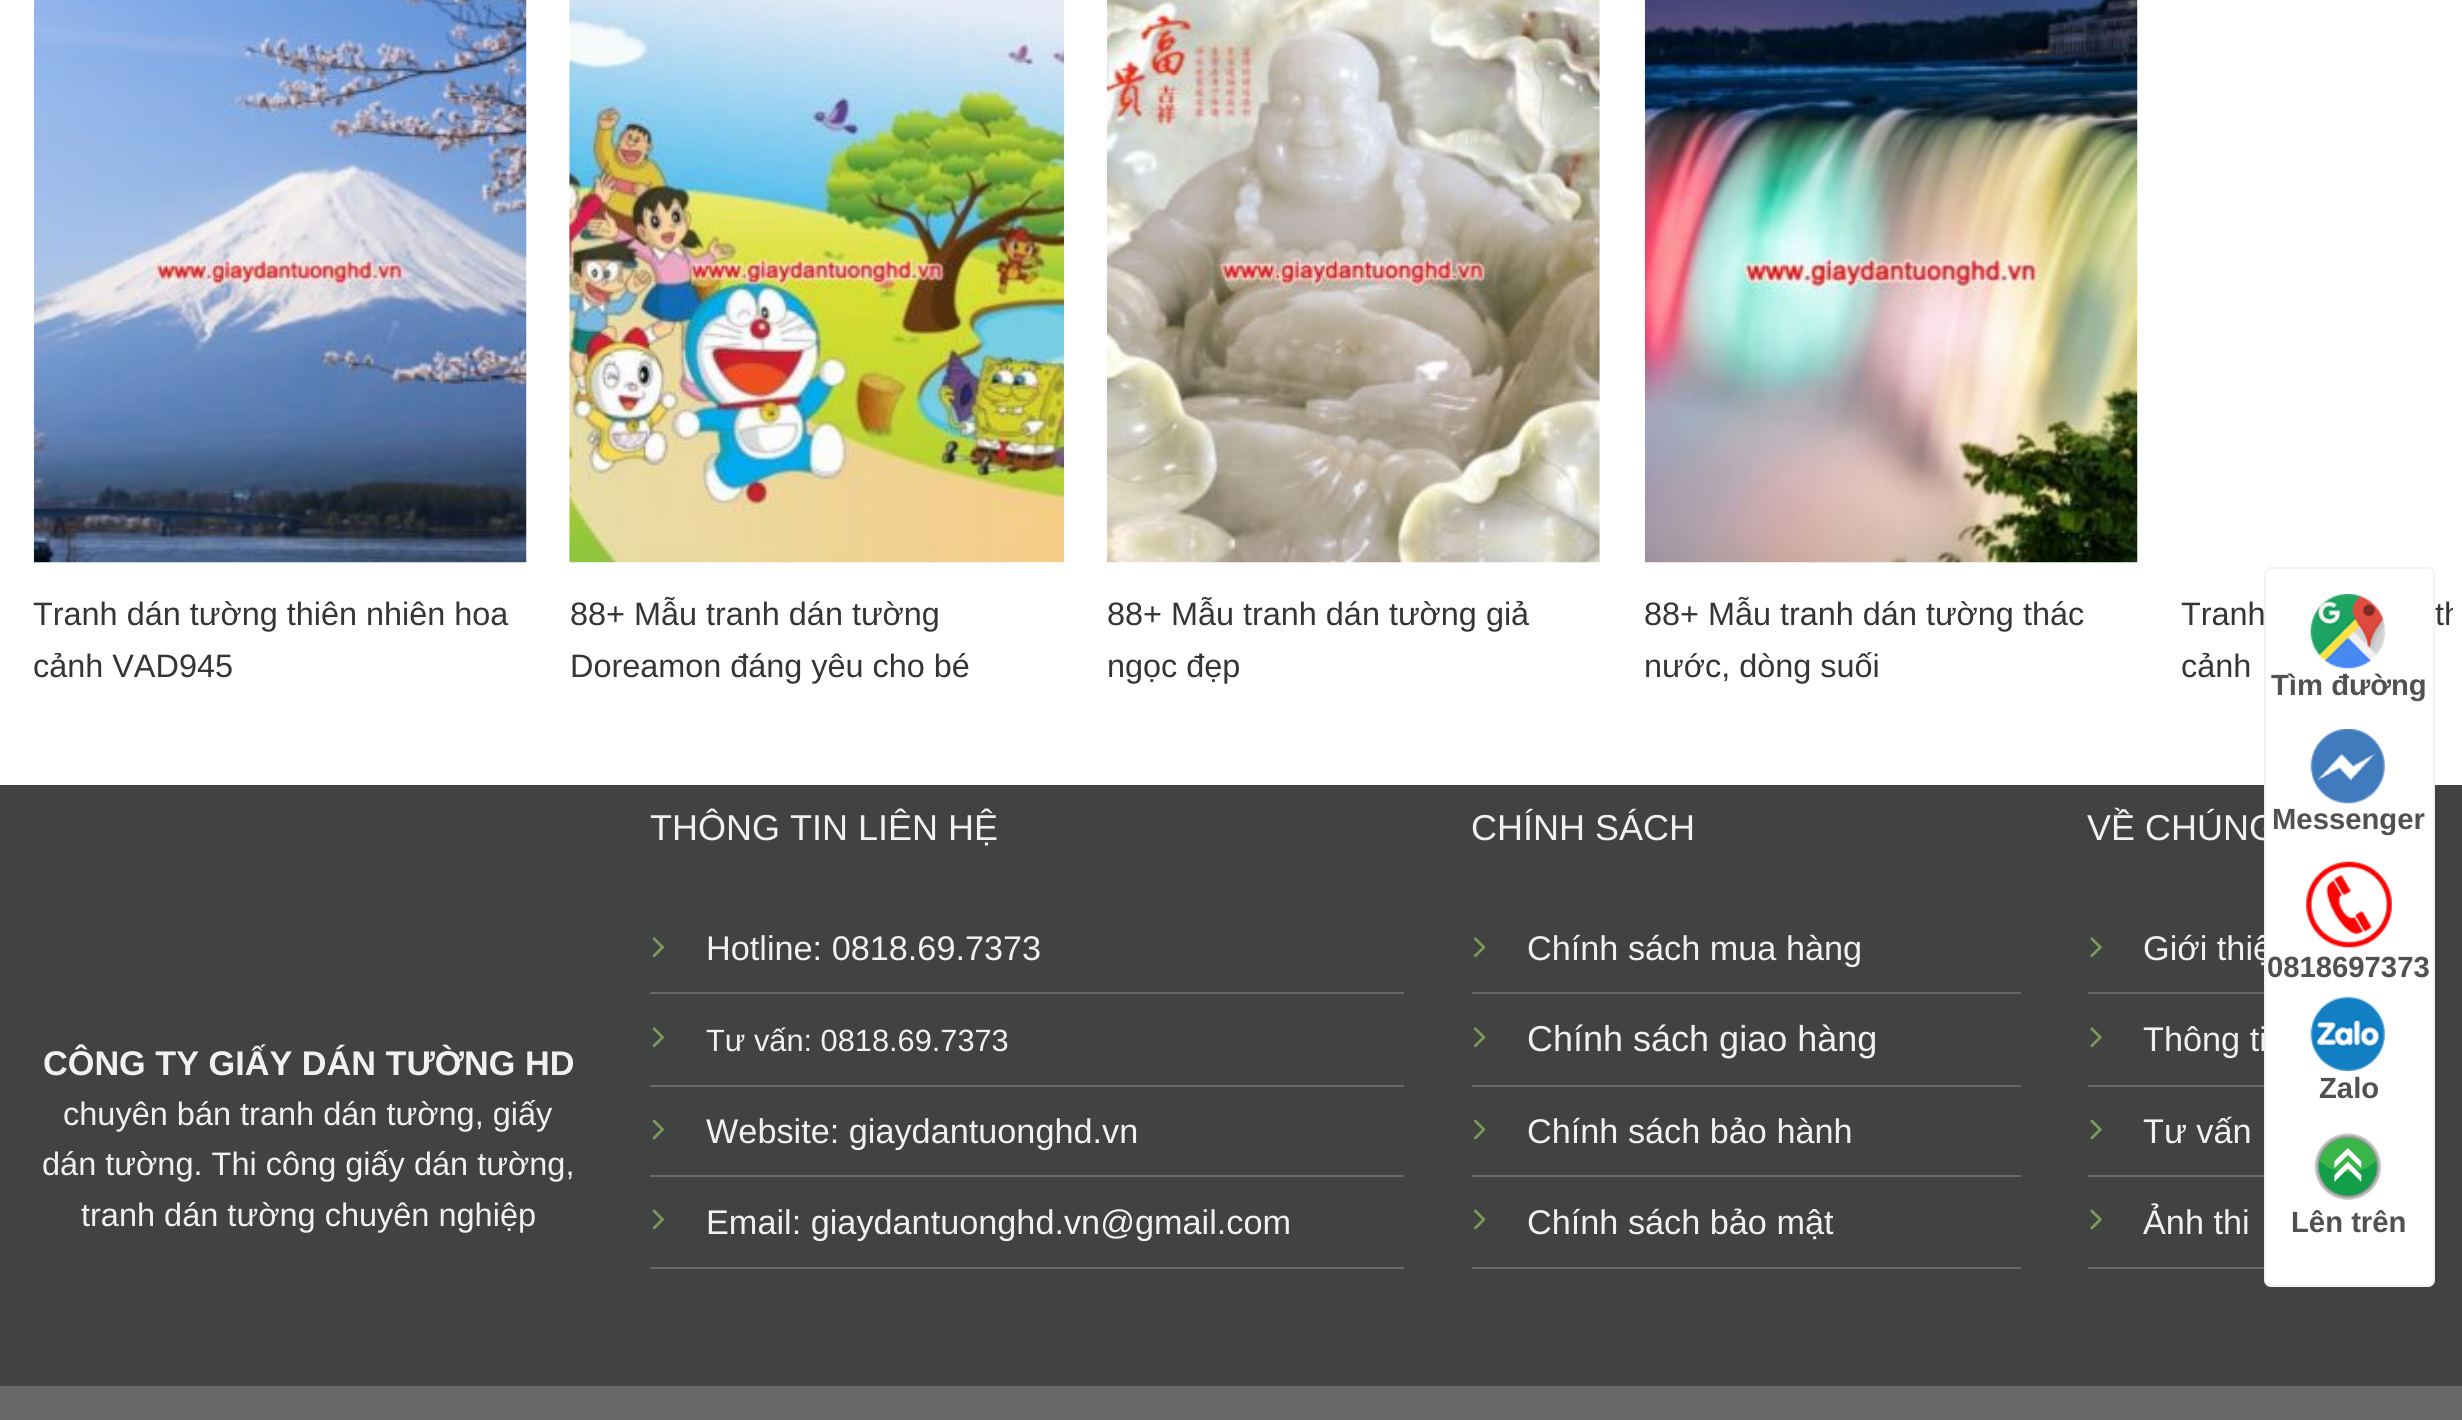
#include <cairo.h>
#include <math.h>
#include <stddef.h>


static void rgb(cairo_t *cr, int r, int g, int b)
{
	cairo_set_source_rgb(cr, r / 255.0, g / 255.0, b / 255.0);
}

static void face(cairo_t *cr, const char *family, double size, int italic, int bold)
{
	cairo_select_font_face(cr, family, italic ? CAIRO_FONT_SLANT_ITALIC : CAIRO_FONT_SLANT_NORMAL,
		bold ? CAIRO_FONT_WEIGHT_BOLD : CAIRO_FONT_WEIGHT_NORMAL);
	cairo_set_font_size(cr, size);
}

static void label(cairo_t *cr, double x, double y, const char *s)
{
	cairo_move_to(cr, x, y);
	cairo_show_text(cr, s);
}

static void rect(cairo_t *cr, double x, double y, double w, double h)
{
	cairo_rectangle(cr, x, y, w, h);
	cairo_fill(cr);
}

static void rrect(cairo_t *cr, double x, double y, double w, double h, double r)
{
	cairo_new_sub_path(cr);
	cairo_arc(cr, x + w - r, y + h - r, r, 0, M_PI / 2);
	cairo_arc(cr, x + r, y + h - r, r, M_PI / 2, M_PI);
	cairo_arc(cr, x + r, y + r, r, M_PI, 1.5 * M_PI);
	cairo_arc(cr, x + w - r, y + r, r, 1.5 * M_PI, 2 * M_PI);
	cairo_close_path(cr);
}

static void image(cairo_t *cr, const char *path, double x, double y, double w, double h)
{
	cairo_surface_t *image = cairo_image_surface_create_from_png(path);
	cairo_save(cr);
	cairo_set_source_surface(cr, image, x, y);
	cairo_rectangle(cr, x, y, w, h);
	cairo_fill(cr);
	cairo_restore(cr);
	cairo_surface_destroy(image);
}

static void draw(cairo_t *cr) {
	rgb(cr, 255, 255, 255);
	cairo_paint(cr);
	image(cr, "image0.png", 33, 0, 494, 563);
	face(cr, "Liberation Sans", 32.4, 0, 0);
	rgb(cr, 53, 53, 53);
	label(cr, 33, 625, "Tranh dán tường thiên nhiên hoa");
	label(cr, 33, 677, "cảnh VAD945");
	image(cr, "image1.png", 569, 0, 496, 563);
	label(cr, 570, 625, "88+ Mẫu tranh dán tường");
	label(cr, 570, 677, "Doreamon đáng yêu cho bé");
	image(cr, "image2.png", 1107, 0, 493, 563);
	label(cr, 1107, 625, "88+ Mẫu tranh dán tường giả");
	label(cr, 1107, 677, "ngọc đẹp");
	image(cr, "image3.png", 1644, 0, 494, 563);
	label(cr, 1644, 625, "88+ Mẫu tranh dán tường thác");
	label(cr, 1644, 677, "nước, dòng suối");
	label(cr, 2181, 625, "Tranh");
	cairo_save(cr);
	cairo_rectangle(cr, 11, 0, 2442, 785);
	cairo_clip(cr);
	label(cr, 2435, 625, "th");
	cairo_restore(cr);
	label(cr, 2181, 677, "cảnh");
	rgb(cr, 66, 66, 66);
	rect(cr, 0, 785, 2462, 601);
	face(cr, "Liberation Sans", 34.25, 0, 1);
	rgb(cr, 241, 241, 241);
	label(cr, 43, 1075, "CÔNG TY GIẤY DÁN TƯỜNG HD");
	face(cr, "Liberation Sans", 32.5, 0, 0);
	label(cr, 63, 1125, "chuyên bán tranh dán tường, giấy");
	label(cr, 42, 1175, "dán tường. Thi công giấy dán tường,");
	label(cr, 81, 1226, "tranh dán tường chuyên nghiệp");
	face(cr, "Liberation Sans", 36, 0, 0);
	label(cr, 650, 840, "THÔNG TIN LIÊN HỆ");
	rgb(cr, 104, 104, 104);
	rect(cr, 650, 992, 754, 2);
	image(cr, "image4.png", 652, 937, 13, 21);
	face(cr, "Liberation Sans", 34.25, 0, 0);
	rgb(cr, 241, 241, 241);
	label(cr, 706, 960, "Hotline: 0818.69.7373");
	rgb(cr, 104, 104, 104);
	rect(cr, 650, 1085, 754, 2);
	image(cr, "image4.png", 652, 1027, 13, 21);
	face(cr, "Liberation Sans", 30.75, 0, 0);
	rgb(cr, 241, 241, 241);
	label(cr, 706, 1051, "Tư vấn: 0818.69.7373");
	rgb(cr, 104, 104, 104);
	rect(cr, 650, 1175, 754, 2);
	image(cr, "image5.png", 652, 1119, 13, 21);
	face(cr, "Liberation Sans", 34.25, 0, 0);
	rgb(cr, 241, 241, 241);
	label(cr, 706, 1143, "Website: giaydantuonghd.vn");
	rgb(cr, 104, 104, 104);
	rect(cr, 650, 1267, 754, 2);
	image(cr, "image5.png", 652, 1209, 13, 21);
	rgb(cr, 241, 241, 241);
	label(cr, 706, 1234, "Email: giaydantuonghd.vn@gmail.com");
	face(cr, "Liberation Sans", 36, 0, 0);
	label(cr, 1471, 840, "CHÍNH SÁCH");
	rgb(cr, 104, 104, 104);
	rect(cr, 1472, 992, 549, 2);
	image(cr, "image6.png", 1473, 937, 13, 21);
	face(cr, "Liberation Sans", 34.25, 0, 0);
	rgb(cr, 241, 241, 241);
	label(cr, 1527, 960, "Chính sách mua hàng");
	rgb(cr, 104, 104, 104);
	rect(cr, 1472, 1085, 549, 2);
	image(cr, "image6.png", 1473, 1027, 13, 21);
	face(cr, "Liberation Sans", 36, 0, 0);
	rgb(cr, 241, 241, 241);
	label(cr, 1527, 1051, "Chính sách giao hàng");
	rgb(cr, 104, 104, 104);
	rect(cr, 1472, 1175, 549, 2);
	image(cr, "image7.png", 1473, 1119, 13, 21);
	face(cr, "Liberation Sans", 34.25, 0, 0);
	rgb(cr, 241, 241, 241);
	label(cr, 1527, 1143, "Chính sách bảo hành");
	rgb(cr, 104, 104, 104);
	rect(cr, 1472, 1267, 549, 2);
	image(cr, "image7.png", 1473, 1209, 13, 21);
	rgb(cr, 241, 241, 241);
	label(cr, 1527, 1234, "Chính sách bảo mật");
	face(cr, "Liberation Sans", 36, 0, 0);
	label(cr, 2087, 840, "VỀ CHÚNG");
	rgb(cr, 104, 104, 104);
	rect(cr, 2088, 992, 176, 2);
	image(cr, "image8.png", 2090, 937, 12, 21);
	face(cr, "Liberation Sans", 34.25, 0, 0);
	rgb(cr, 241, 241, 241);
	label(cr, 2143, 960, "Giới thiệ");
	rgb(cr, 104, 104, 104);
	rect(cr, 2088, 1085, 176, 2);
	image(cr, "image8.png", 2090, 1027, 12, 21);
	rgb(cr, 241, 241, 241);
	label(cr, 2143, 1051, "Thông ti");
	rgb(cr, 104, 104, 104);
	rect(cr, 2088, 1175, 176, 2);
	image(cr, "image9.png", 2090, 1119, 12, 21);
	rgb(cr, 241, 241, 241);
	label(cr, 2143, 1143, "Tư vấn");
	rgb(cr, 104, 104, 104);
	rect(cr, 2088, 1267, 176, 2);
	image(cr, "image9.png", 2090, 1209, 12, 21);
	rgb(cr, 241, 241, 241);
	label(cr, 2143, 1234, "Ảnh thi");
	rgb(cr, 104, 104, 104);
	rect(cr, 0, 1386, 2462, 34);
	rgb(cr, 255, 255, 255);
	rrect(cr, 2265, 568, 169, 718, 6);
	cairo_fill_preserve(cr);
	rgb(cr, 242, 242, 242);
	cairo_stroke(cr);
	image(cr, "image10.png", 2310, 594, 75, 75);
	face(cr, "Liberation Sans", 29.25, 0, 1);
	rgb(cr, 81, 81, 81);
	label(cr, 2271, 695, "Tìm đường");
	image(cr, "image11.png", 2310, 729, 75, 75);
	label(cr, 2272, 829, "Messenger");
	image(cr, "image12.png", 2306, 861, 86, 87);
	label(cr, 2267, 977, "0818697373");
	image(cr, "image13.png", 2310, 996, 75, 75);
	label(cr, 2319, 1098, "Zalo");
	image(cr, "image14.png", 2314, 1133, 67, 67);
	label(cr, 2291, 1232, "Lên trên");
}

int main(void) {
	cairo_surface_t *surface = cairo_image_surface_create(CAIRO_FORMAT_RGB24, 2462, 1420);
	cairo_t *cr = cairo_create(surface);
	cairo_font_options_t *options = cairo_font_options_create();
	cairo_font_options_set_hint_metrics(options, CAIRO_HINT_METRICS_OFF);
	cairo_font_options_set_hint_style(options, CAIRO_HINT_STYLE_NONE);
	cairo_set_font_options(cr, options);
	cairo_set_miter_limit(cr, 4);
	draw(cr);
	cairo_surface_write_to_png(surface, "render.png");
	cairo_font_options_destroy(options);
	cairo_destroy(cr);
	cairo_surface_destroy(surface);
	return 0;
}
